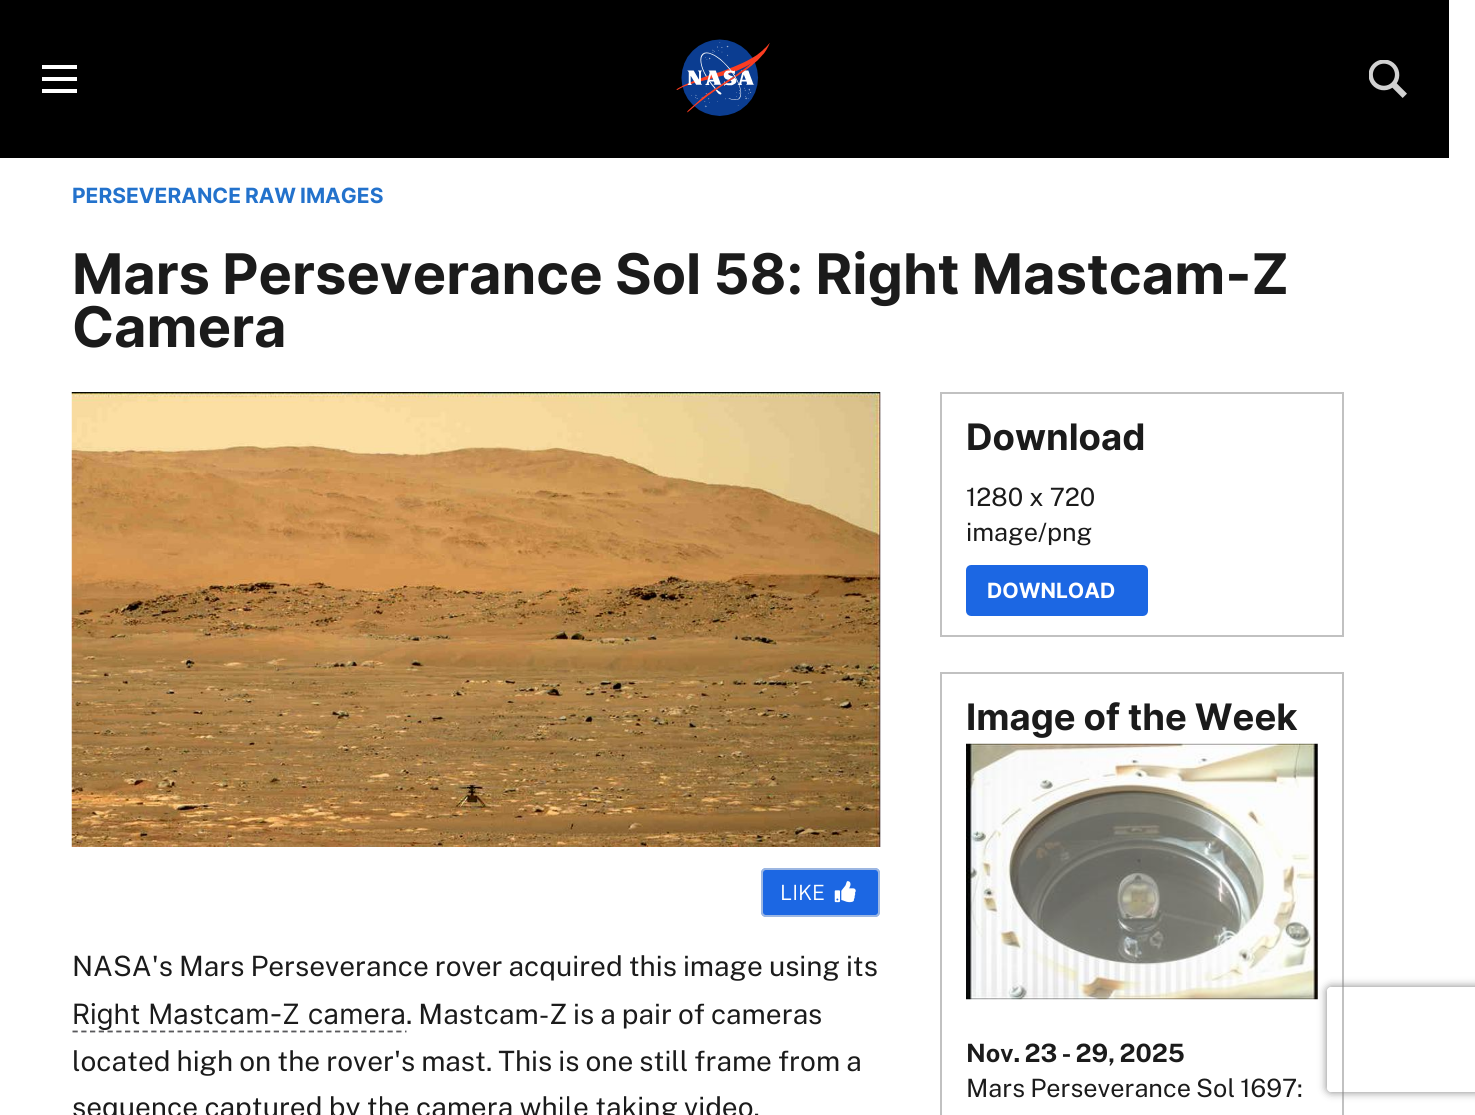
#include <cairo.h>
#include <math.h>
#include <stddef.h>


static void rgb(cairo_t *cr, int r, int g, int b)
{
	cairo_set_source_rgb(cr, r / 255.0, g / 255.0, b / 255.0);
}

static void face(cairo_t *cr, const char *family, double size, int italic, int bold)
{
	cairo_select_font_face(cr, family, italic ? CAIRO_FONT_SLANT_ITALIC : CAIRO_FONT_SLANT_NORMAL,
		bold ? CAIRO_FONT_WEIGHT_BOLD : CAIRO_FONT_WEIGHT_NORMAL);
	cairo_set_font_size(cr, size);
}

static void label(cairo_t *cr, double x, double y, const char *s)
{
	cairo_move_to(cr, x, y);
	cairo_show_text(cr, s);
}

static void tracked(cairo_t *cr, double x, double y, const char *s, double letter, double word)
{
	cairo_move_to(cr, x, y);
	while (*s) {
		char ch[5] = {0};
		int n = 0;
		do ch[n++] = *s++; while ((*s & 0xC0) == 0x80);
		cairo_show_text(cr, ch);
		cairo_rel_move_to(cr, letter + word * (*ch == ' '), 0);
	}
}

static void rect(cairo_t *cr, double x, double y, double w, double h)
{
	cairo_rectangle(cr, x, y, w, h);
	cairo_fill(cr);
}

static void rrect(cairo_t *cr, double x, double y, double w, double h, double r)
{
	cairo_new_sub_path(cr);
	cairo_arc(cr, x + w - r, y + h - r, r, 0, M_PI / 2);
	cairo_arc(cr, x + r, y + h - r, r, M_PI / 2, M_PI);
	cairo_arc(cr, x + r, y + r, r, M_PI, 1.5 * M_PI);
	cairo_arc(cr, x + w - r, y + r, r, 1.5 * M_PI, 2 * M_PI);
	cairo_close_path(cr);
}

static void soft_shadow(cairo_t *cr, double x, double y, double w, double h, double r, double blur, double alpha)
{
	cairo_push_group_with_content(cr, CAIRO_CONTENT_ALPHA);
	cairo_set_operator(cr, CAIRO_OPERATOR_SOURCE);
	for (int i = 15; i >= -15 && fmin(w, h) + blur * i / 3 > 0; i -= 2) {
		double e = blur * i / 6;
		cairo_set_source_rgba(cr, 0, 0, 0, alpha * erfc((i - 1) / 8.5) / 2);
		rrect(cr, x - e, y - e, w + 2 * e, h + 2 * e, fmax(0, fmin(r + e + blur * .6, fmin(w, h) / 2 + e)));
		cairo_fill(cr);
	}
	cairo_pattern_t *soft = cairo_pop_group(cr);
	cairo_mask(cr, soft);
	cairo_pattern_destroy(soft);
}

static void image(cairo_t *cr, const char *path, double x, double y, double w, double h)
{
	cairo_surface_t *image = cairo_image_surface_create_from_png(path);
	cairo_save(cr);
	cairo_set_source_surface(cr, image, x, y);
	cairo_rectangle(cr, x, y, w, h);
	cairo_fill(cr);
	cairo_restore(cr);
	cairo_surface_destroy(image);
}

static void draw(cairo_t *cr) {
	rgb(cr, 255, 255, 255);
	cairo_paint(cr);
	rgb(cr, 0, 0, 0);
	rect(cr, 0, 0, 1449, 158);
	rgb(cr, 255, 255, 255);
	rect(cr, 42, 65, 35, 4);
	rect(cr, 42, 77, 35, 4);
	rect(cr, 42, 89, 35, 4);
	image(cr, "image0.png", 676, 39, 94, 77);
	image(cr, "image1.png", 1369, 60, 38, 38);
	face(cr, "Inter", 21, 0, 1);
	rgb(cr, 35, 114, 204);
	tracked(cr, 72, 203, "PERSEVERANCE RAW IMAGES", 0, -1);
	face(cr, "Inter", 56, 0, 1);
	rgb(cr, 27, 27, 27);
	tracked(cr, 72, 294, "Mars Perseverance Sol 58: Right Mastcam-Z", 0, -0.75);
	label(cr, 72, 347, "Camera");
	image(cr, "image2.png", 71, 392, 810, 455);
	rgb(cr, 28, 103, 227);
	rrect(cr, 761, 868, 119, 49, 5);
	cairo_fill(cr);
	rrect(cr, 762, 869, 117, 47, 4);
	cairo_set_source_rgba(cr, 0.886, 0.886, 0.886, 0.65);
	cairo_stroke(cr);
	face(cr, "Public Sans Light", 21, 0, 0);
	rgb(cr, 255, 255, 255);
	label(cr, 780, 900, "LIKE");
	image(cr, "image3.png", 834, 881, 22, 22);
	face(cr, "Public Sans", 28, 0, 0);
	rgb(cr, 27, 27, 27);
	tracked(cr, 72, 976, "NASA's Mars Perseverance rover acquired this image using its", 0, -0.75);
	cairo_new_path(cr);
	cairo_move_to(cr, 72.5, 1031.5);
	cairo_line_to(cr, 406.5, 1031.5);
	rgb(cr, 88, 88, 91);
	cairo_set_line_width(cr, 1.8);
	cairo_set_dash(cr, (double[]){5.25, 3.5}, 2, 0);
	cairo_stroke(cr);
	face(cr, "Inter", 28, 0, 0);
	rgb(cr, 27, 27, 27);
	label(cr, 72, 1024, "Right Mastcam-Z camera");
	face(cr, "Public Sans", 28, 0, 0);
	tracked(cr, 406, 1024, ". Mastcam-Z is a pair of cameras", 0, -0.75);
	tracked(cr, 72, 1071, "located high on the rover's mast. This is one still frame from a", 0, -0.75);
	tracked(cr, 72, 1117, "sequence captured by the camera while taking video.", 0, -0.5);
	cairo_rectangle(cr, 941, 393, 402, 243);
	rgb(cr, 193, 193, 193);
	cairo_set_line_width(cr, 2);
	cairo_set_dash(cr, NULL, 0, 0);
	cairo_stroke(cr);
	face(cr, "Inter", 36.5, 0, 1);
	rgb(cr, 27, 27, 27);
	label(cr, 966, 450, "Download");
	face(cr, "Public Sans", 25.25, 0, 0);
	label(cr, 966, 506, "1280 x 720");
	label(cr, 966, 541, "image/png");
	rgb(cr, 28, 103, 227);
	rrect(cr, 968, 567, 178, 47, 3);
	cairo_fill_preserve(cr);
	cairo_set_line_width(cr, 4);
	cairo_stroke(cr);
	face(cr, "Inter", 21, 0, 1);
	rgb(cr, 255, 255, 255);
	label(cr, 987, 598, "DOWNLOAD");
	cairo_rectangle(cr, 941, 673, 402, 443);
	rgb(cr, 193, 193, 193);
	cairo_set_line_width(cr, 2);
	cairo_stroke(cr);
	face(cr, "Inter", 36.5, 0, 1);
	rgb(cr, 27, 27, 27);
	tracked(cr, 966, 730, "Image of the Week", 0, -0.5);
	image(cr, "image4.png", 966, 743, 352, 257);
	face(cr, "Public Sans", 25.25, 0, 1);
	tracked(cr, 966, 1062, "Nov. 23 - 29, 2025", 0, -1.5);
	face(cr, "Public Sans", 25.25, 0, 0);
	tracked(cr, 966, 1097, "Mars Perseverance Sol 1697:", 0, -1);
	cairo_save(cr);
	cairo_set_fill_rule(cr, CAIRO_FILL_RULE_EVEN_ODD);
	cairo_new_path(cr);
	cairo_move_to(cr, 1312, 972);
	cairo_line_to(cr, 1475, 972);
	cairo_line_to(cr, 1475, 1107);
	cairo_line_to(cr, 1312, 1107);
	cairo_close_path(cr);
	cairo_move_to(cr, 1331, 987);
	cairo_line_to(cr, 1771, 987);
	cairo_curve_to(cr, 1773, 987, 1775, 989, 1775, 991);
	cairo_line_to(cr, 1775, 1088);
	cairo_curve_to(cr, 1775, 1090, 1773, 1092, 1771, 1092);
	cairo_line_to(cr, 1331, 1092);
	cairo_curve_to(cr, 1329, 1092, 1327, 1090, 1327, 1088);
	cairo_line_to(cr, 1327, 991);
	cairo_curve_to(cr, 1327, 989, 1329, 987, 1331, 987);
	cairo_close_path(cr);
	cairo_clip(cr);
	rgb(cr, 128, 128, 128);
	soft_shadow(cr, 1327, 987, 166, 105, 4, 4.5, 1);
	cairo_restore(cr);
}

int main(void) {
	cairo_surface_t *surface = cairo_image_surface_create(CAIRO_FORMAT_RGB24, 1475, 1115);
	cairo_t *cr = cairo_create(surface);
	cairo_font_options_t *options = cairo_font_options_create();
	cairo_font_options_set_hint_metrics(options, CAIRO_HINT_METRICS_OFF);
	cairo_font_options_set_hint_style(options, CAIRO_HINT_STYLE_NONE);
	cairo_set_font_options(cr, options);
	cairo_set_miter_limit(cr, 4);
	draw(cr);
	cairo_surface_write_to_png(surface, "render.png");
	cairo_font_options_destroy(options);
	cairo_destroy(cr);
	cairo_surface_destroy(surface);
	return 0;
}
